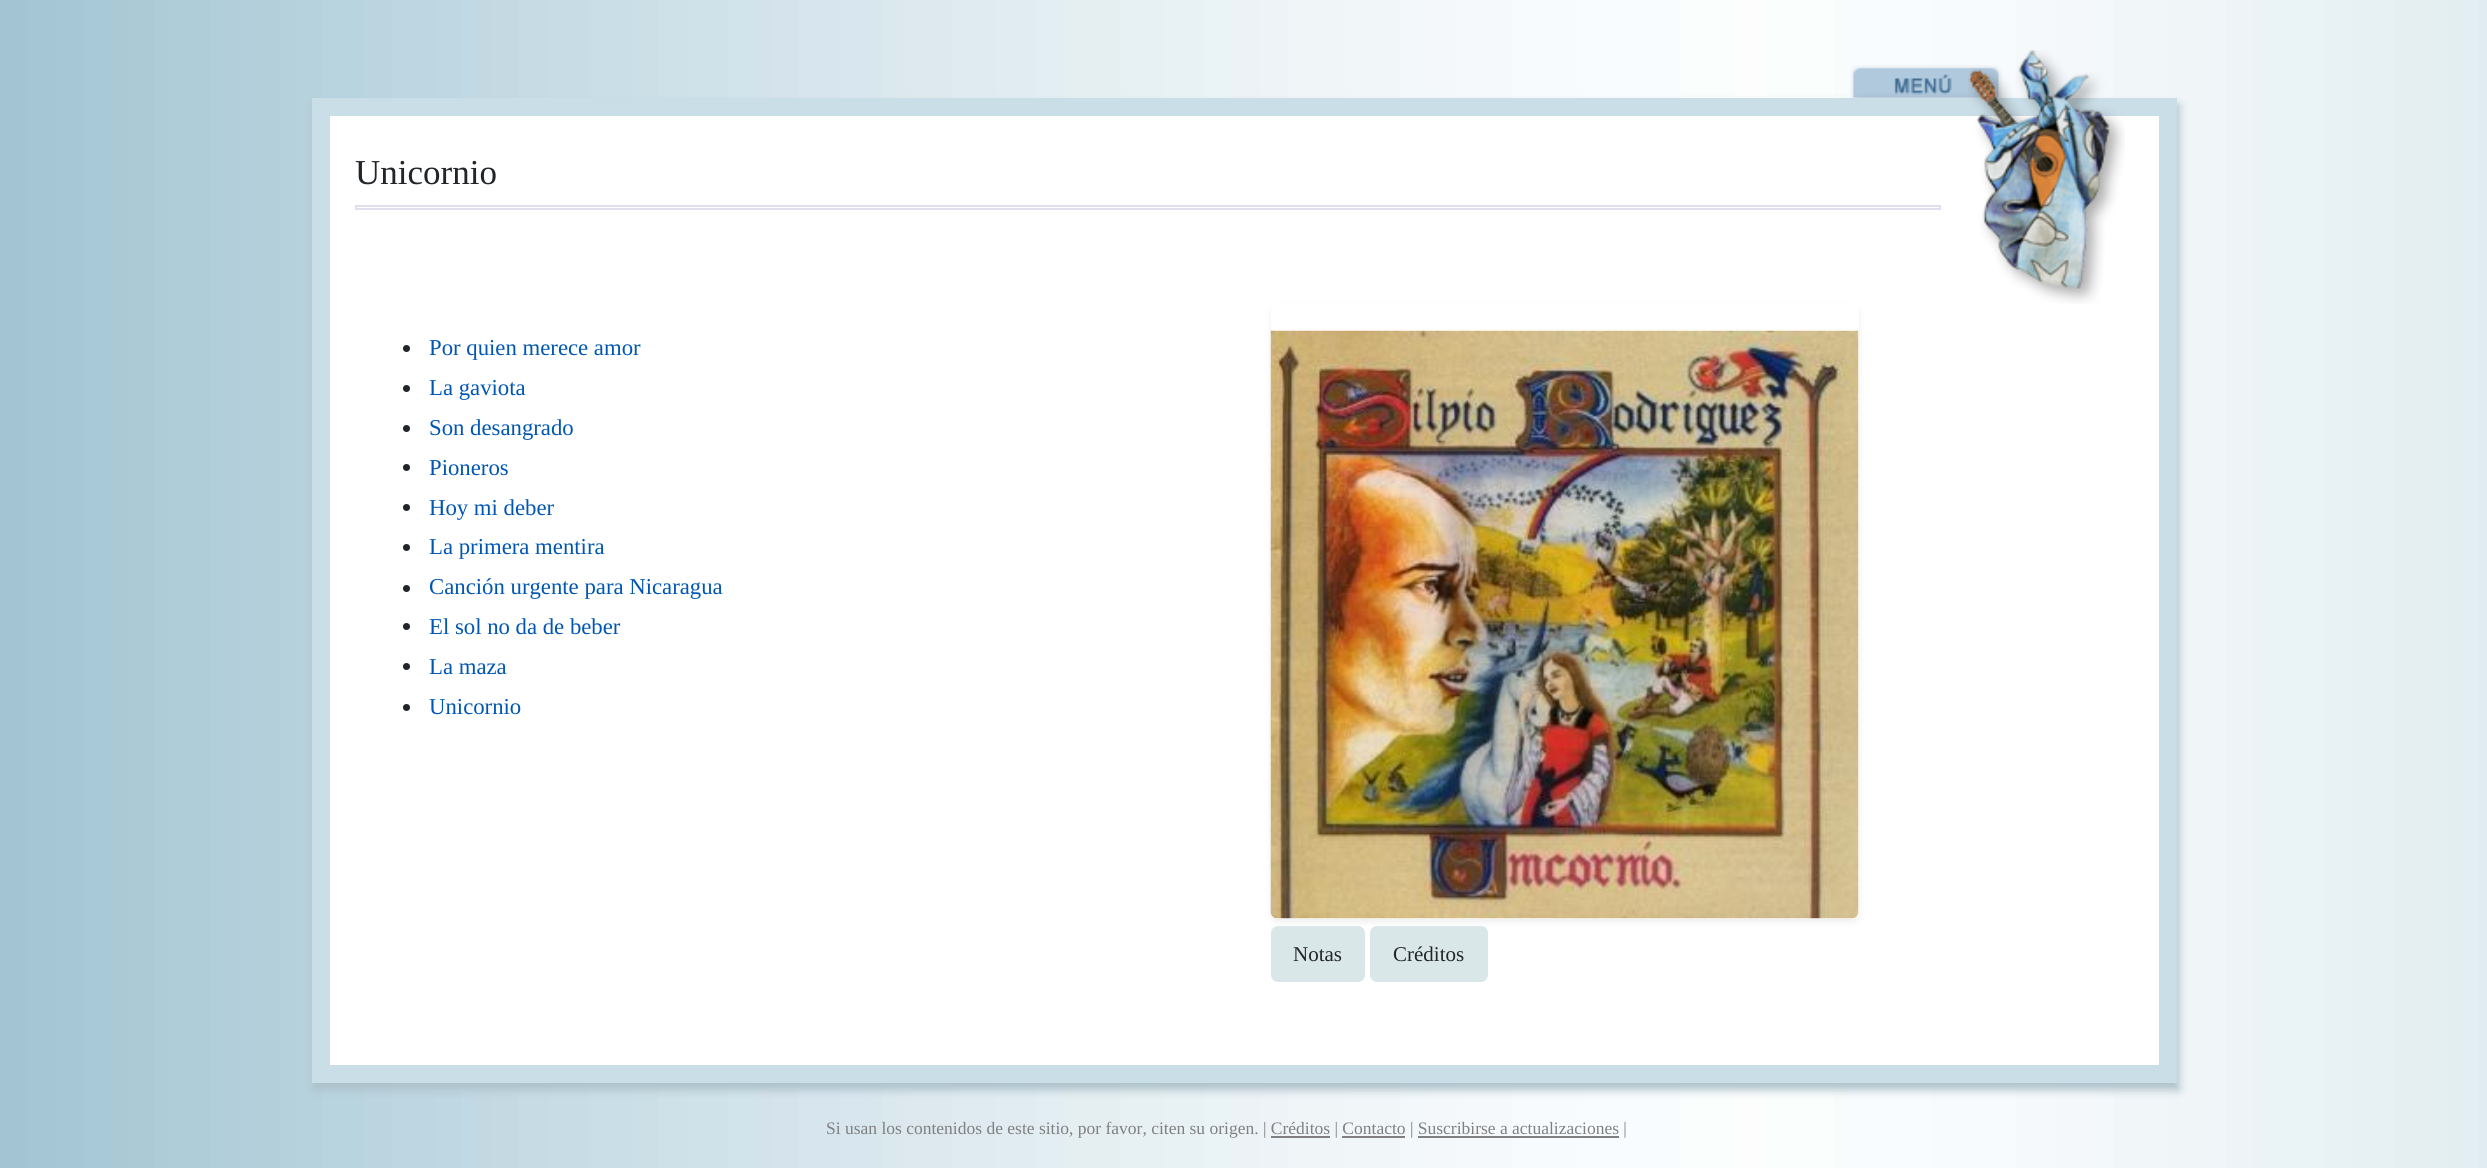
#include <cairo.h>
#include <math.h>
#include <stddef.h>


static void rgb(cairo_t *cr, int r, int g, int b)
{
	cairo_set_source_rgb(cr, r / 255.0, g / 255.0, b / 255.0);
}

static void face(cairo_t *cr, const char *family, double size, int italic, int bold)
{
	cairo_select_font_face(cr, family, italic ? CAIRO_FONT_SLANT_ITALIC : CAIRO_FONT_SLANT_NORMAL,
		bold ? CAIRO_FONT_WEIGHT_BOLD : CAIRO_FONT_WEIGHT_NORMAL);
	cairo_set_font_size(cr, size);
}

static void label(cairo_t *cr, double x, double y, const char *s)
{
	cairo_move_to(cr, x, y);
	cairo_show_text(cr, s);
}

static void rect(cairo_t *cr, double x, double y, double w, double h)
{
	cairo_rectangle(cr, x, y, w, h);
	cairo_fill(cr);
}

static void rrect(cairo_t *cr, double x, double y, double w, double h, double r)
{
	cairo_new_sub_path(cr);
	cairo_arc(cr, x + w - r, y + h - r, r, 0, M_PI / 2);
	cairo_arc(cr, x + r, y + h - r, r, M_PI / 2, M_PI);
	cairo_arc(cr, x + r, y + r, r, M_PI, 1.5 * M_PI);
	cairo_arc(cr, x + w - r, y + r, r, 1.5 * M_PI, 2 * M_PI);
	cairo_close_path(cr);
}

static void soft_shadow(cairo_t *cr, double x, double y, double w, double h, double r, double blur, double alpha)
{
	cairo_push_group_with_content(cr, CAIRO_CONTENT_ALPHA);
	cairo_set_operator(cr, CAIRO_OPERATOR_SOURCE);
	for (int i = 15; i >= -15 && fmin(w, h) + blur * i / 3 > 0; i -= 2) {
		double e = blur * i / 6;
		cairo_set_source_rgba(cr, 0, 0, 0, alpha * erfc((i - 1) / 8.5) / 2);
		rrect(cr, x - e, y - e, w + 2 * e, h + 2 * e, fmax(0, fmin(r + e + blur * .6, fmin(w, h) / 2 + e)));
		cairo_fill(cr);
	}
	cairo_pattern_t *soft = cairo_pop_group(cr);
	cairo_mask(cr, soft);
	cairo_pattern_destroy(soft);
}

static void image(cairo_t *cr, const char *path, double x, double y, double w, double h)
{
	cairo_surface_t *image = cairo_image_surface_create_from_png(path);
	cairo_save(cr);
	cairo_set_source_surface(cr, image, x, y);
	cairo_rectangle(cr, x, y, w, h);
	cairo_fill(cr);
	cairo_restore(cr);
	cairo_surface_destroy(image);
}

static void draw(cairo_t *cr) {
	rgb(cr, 255, 255, 255);
	cairo_paint(cr);
	image(cr, "image0.png", 0, 0, 2487, 1168);
	rgb(cr, 173, 193, 202);
	soft_shadow(cr, 313, 105, 1866, 985, 0, 4.5, 1);
	image(cr, "image1.png", 1850, 65, 152, 33);
	rgb(cr, 255, 255, 255);
	cairo_rectangle(cr, 321, 107, 1847, 967);
	cairo_fill_preserve(cr);
	rgb(cr, 202, 222, 231);
	cairo_set_line_width(cr, 18);
	cairo_stroke(cr);
	cairo_rectangle(cr, 356, 206, 1584, 3);
	rgb(cr, 224, 223, 239);
	cairo_set_line_width(cr, 2);
	cairo_stroke(cr);
	image(cr, "image2.png", 1968, 50, 157, 254);
	face(cr, "Liberation Serif", 35, 0, 0);
	rgb(cr, 33, 37, 41);
	label(cr, 355, 184, "Unicornio");
	cairo_new_path(cr);
	cairo_arc(cr, 406.5, 348.5, 3.5, 0, 2 * M_PI);
	cairo_fill(cr);
	face(cr, "Liberation Serif", 22.75, 0, 0);
	rgb(cr, 0, 86, 179);
	label(cr, 429, 355, "Por quien merece amor");
	rgb(cr, 33, 37, 41);
	cairo_new_path(cr);
	cairo_arc(cr, 406.5, 388.5, 3.5, 0, 2 * M_PI);
	cairo_fill(cr);
	rgb(cr, 0, 86, 179);
	label(cr, 429, 395, "La gaviota");
	rgb(cr, 33, 37, 41);
	cairo_new_path(cr);
	cairo_arc(cr, 406.5, 428.5, 3.5, 0, 2 * M_PI);
	cairo_fill(cr);
	rgb(cr, 0, 86, 179);
	label(cr, 429, 435, "Son desangrado");
	rgb(cr, 33, 37, 41);
	cairo_new_path(cr);
	cairo_arc(cr, 406.5, 467.5, 3.5, 0, 2 * M_PI);
	cairo_fill(cr);
	rgb(cr, 0, 86, 179);
	label(cr, 429, 475, "Pioneros");
	rgb(cr, 33, 37, 41);
	cairo_new_path(cr);
	cairo_arc(cr, 406.5, 507.5, 3.5, 0, 2 * M_PI);
	cairo_fill(cr);
	rgb(cr, 0, 86, 179);
	label(cr, 429, 515, "Hoy mi deber");
	rgb(cr, 33, 37, 41);
	cairo_new_path(cr);
	cairo_arc(cr, 406.5, 547.5, 3.5, 0, 2 * M_PI);
	cairo_fill(cr);
	rgb(cr, 0, 86, 179);
	label(cr, 429, 554, "La primera mentira");
	rgb(cr, 33, 37, 41);
	cairo_new_path(cr);
	cairo_arc(cr, 406.5, 588.5, 3.5, 0, 2 * M_PI);
	cairo_fill(cr);
	rgb(cr, 0, 86, 179);
	label(cr, 429, 594, "Canción urgente para Nicaragua");
	rgb(cr, 33, 37, 41);
	cairo_new_path(cr);
	cairo_arc(cr, 406.5, 626.5, 3.5, 0, 2 * M_PI);
	cairo_fill(cr);
	rgb(cr, 0, 86, 179);
	label(cr, 429, 634, "El sol no da de beber");
	rgb(cr, 33, 37, 41);
	cairo_new_path(cr);
	cairo_arc(cr, 406.5, 666.5, 3.5, 0, 2 * M_PI);
	cairo_fill(cr);
	rgb(cr, 0, 86, 179);
	label(cr, 429, 674, "La maza");
	rgb(cr, 33, 37, 41);
	cairo_new_path(cr);
	cairo_arc(cr, 406.5, 707.5, 3.5, 0, 2 * M_PI);
	cairo_fill(cr);
	rgb(cr, 0, 86, 179);
	label(cr, 429, 714, "Unicornio");
	cairo_save(cr);
	cairo_set_fill_rule(cr, CAIRO_FILL_RULE_EVEN_ODD);
	cairo_new_path(cr);
	cairo_move_to(cr, 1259, 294);
	cairo_line_to(cr, 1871, 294);
	cairo_line_to(cr, 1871, 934);
	cairo_line_to(cr, 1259, 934);
	cairo_close_path(cr);
	cairo_move_to(cr, 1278, 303);
	cairo_line_to(cr, 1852, 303);
	cairo_curve_to(cr, 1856, 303, 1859, 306, 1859, 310);
	cairo_line_to(cr, 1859, 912);
	cairo_curve_to(cr, 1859, 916, 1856, 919, 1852, 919);
	cairo_line_to(cr, 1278, 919);
	cairo_curve_to(cr, 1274, 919, 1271, 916, 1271, 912);
	cairo_line_to(cr, 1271, 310);
	cairo_curve_to(cr, 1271, 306, 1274, 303, 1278, 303);
	cairo_close_path(cr);
	cairo_clip(cr);
	rgb(cr, 0, 0, 0);
	soft_shadow(cr, 1271, 306, 588, 616, 7, 3.5, 0.07);
	cairo_restore(cr);
	image(cr, "image3.png", 1270, 330, 589, 589);
	rgb(cr, 218, 231, 232);
	rrect(cr, 1271, 926, 94, 56, 7);
	cairo_fill(cr);
	face(cr, "Liberation Serif", 21, 0, 0);
	rgb(cr, 33, 37, 41);
	label(cr, 1293, 961, "Notas");
	rgb(cr, 218, 231, 232);
	rrect(cr, 1370, 926, 118, 56, 7);
	cairo_fill(cr);
	rgb(cr, 33, 37, 41);
	label(cr, 1393, 961, "Créditos");
	face(cr, "Liberation Serif", 17.5, 0, 0);
	rgb(cr, 128, 128, 128);
	label(cr, 826, 1134, "Si usan los contenidos de este sitio, por favor, citen su origen. | Créditos | Contacto | Suscribirse a actualizaciones |");
	rect(cr, 1271, 1136, 59, 2);
	rect(cr, 1342, 1136, 63, 2);
	rect(cr, 1418, 1136, 201, 2);
}

int main(void) {
	cairo_surface_t *surface = cairo_image_surface_create(CAIRO_FORMAT_RGB24, 2487, 1168);
	cairo_t *cr = cairo_create(surface);
	cairo_font_options_t *options = cairo_font_options_create();
	cairo_font_options_set_hint_metrics(options, CAIRO_HINT_METRICS_OFF);
	cairo_font_options_set_hint_style(options, CAIRO_HINT_STYLE_NONE);
	cairo_set_font_options(cr, options);
	cairo_set_miter_limit(cr, 4);
	draw(cr);
	cairo_surface_write_to_png(surface, "render.png");
	cairo_font_options_destroy(options);
	cairo_destroy(cr);
	cairo_surface_destroy(surface);
	return 0;
}
